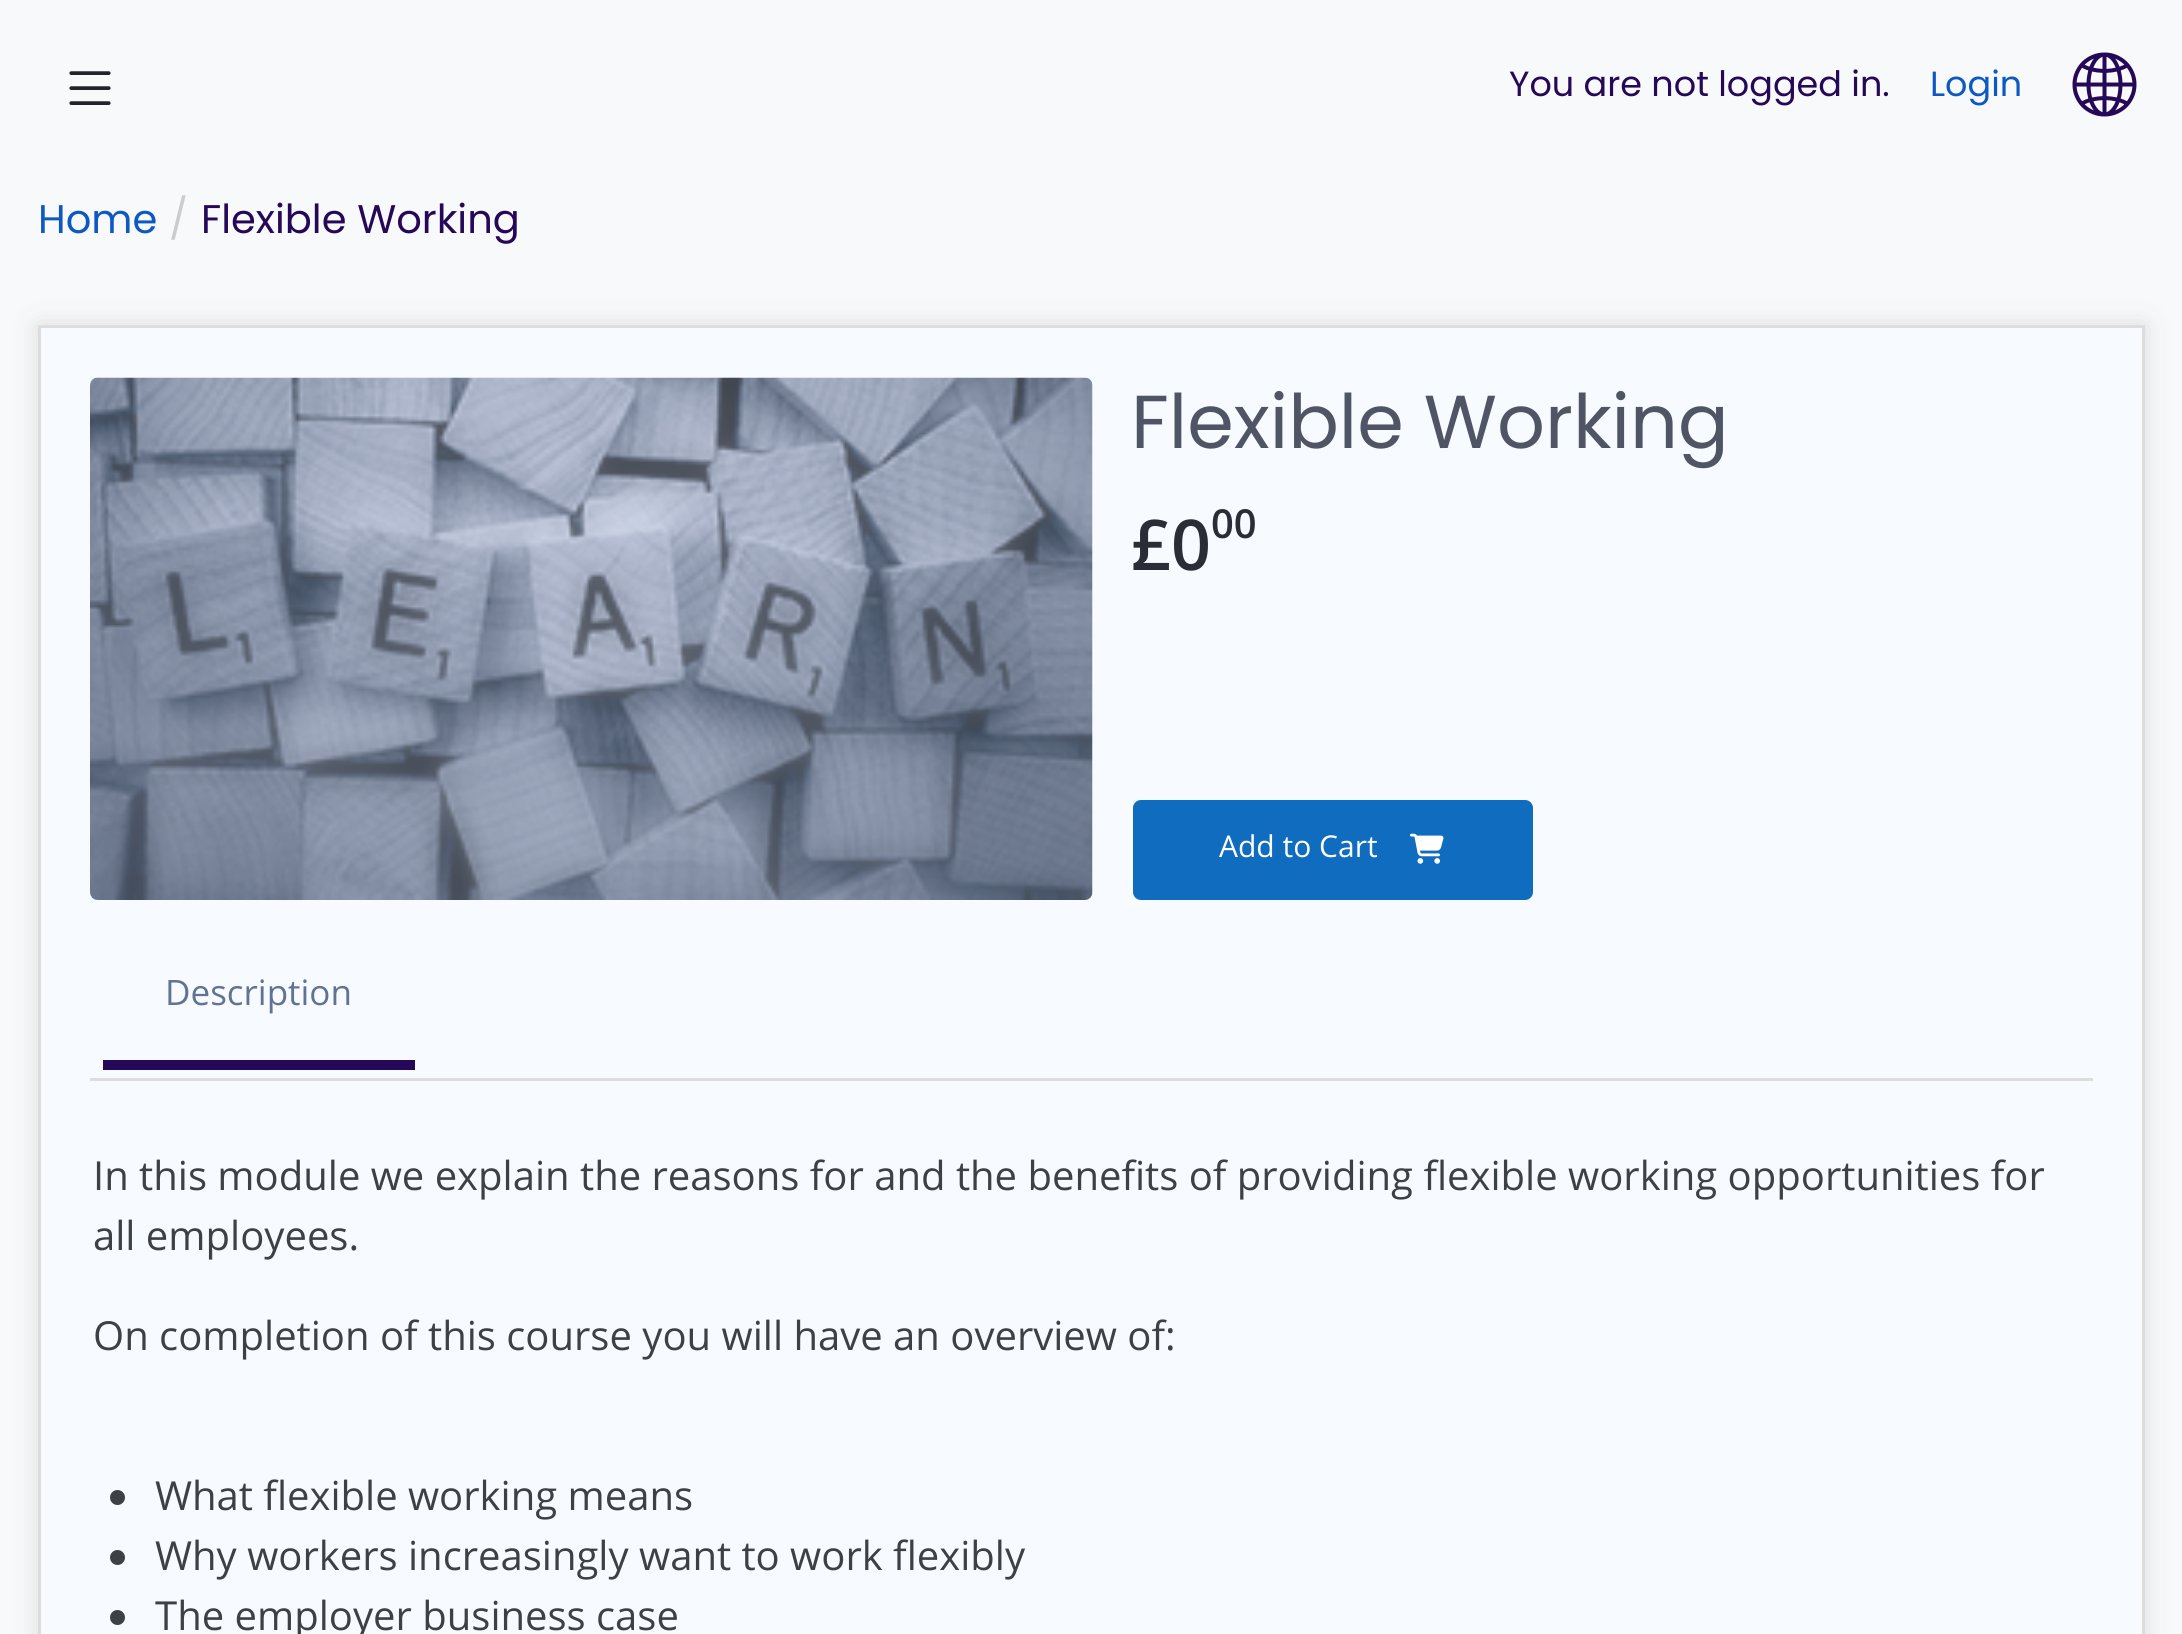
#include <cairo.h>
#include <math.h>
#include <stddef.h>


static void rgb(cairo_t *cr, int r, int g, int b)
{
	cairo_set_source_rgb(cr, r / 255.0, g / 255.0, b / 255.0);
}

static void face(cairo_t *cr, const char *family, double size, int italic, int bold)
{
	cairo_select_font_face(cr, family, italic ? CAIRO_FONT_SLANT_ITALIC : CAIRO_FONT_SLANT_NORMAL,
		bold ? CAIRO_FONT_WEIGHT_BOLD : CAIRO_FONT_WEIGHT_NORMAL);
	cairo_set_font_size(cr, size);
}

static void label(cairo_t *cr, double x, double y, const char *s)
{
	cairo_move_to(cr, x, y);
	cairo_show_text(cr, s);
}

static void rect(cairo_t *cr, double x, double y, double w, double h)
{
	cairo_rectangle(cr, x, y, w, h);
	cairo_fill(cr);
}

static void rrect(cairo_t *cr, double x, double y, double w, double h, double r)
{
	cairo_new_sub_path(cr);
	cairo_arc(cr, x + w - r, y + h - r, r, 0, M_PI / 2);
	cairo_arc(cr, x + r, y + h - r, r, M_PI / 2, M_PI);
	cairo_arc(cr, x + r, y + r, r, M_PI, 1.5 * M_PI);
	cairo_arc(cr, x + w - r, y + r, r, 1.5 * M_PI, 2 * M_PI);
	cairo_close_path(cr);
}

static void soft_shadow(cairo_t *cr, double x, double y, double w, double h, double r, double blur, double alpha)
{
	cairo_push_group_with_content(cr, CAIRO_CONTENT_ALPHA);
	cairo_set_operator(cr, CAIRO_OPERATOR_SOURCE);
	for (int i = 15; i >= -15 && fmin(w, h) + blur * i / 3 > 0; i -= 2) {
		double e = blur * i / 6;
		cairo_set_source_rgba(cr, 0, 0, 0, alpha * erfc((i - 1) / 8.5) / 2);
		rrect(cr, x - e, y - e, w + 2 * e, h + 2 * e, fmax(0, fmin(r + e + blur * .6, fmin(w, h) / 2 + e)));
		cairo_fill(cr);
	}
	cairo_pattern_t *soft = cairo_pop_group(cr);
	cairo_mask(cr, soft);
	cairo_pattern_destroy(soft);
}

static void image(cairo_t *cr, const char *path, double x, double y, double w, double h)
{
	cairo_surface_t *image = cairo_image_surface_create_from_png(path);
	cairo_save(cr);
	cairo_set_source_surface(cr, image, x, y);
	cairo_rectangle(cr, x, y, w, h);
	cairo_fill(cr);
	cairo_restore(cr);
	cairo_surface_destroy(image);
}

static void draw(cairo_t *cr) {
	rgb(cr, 248, 249, 250);
	cairo_paint(cr);
	face(cr, "Poppins", 35, 0, 0);
	rgb(cr, 38, 8, 89);
	label(cr, 1509, 96, "You are not logged in.");
	rgb(cr, 13, 89, 194);
	label(cr, 1930, 96, "Login");
	image(cr, "image0.png", 2072, 52, 65, 65);
	face(cr, "Poppins", 40, 0, 0);
	label(cr, 38, 233, "Home");
	rgb(cr, 204, 204, 204);
	label(cr, 169, 233, "/");
	rgb(cr, 38, 8, 89);
	label(cr, 201, 233, "Flexible Working");
	rgb(cr, 221, 221, 221);
	soft_shadow(cr, 38, 325, 2107, 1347, 0, 12.5, 1);
	rgb(cr, 247, 250, 255);
	cairo_rectangle(cr, 39.5, 326.5, 2104, 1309);
	cairo_fill_preserve(cr);
	rgb(cr, 221, 221, 221);
	cairo_set_line_width(cr, 3);
	cairo_stroke(cr);
	image(cr, "image1.png", 90, 377, 1003, 523);
	face(cr, "Poppins", 75, 0, 0);
	rgb(cr, 79, 85, 101);
	label(cr, 1131, 448, "Flexible Working");
	face(cr, "Open Sans SemiBold", 70, 0, 0);
	rgb(cr, 43, 45, 54);
	label(cr, 1131, 570, "£0");
	face(cr, "Open Sans SemiBold", 40, 0, 0);
	label(cr, 1211, 538, "00");
	rgb(cr, 15, 108, 191);
	rrect(cr, 1134.5, 801.5, 397, 97, 6.5);
	cairo_fill_preserve(cr);
	cairo_stroke(cr);
	face(cr, "Open Sans", 30, 0, 0);
	rgb(cr, 255, 255, 255);
	label(cr, 1219, 857, "Add to Cart");
	image(cr, "image2.png", 1410, 833, 34, 31);
	rgb(cr, 221, 221, 221);
	rect(cr, 90, 1078, 2003, 3);
	face(cr, "Open Sans", 35, 0, 0);
	rgb(cr, 97, 115, 148);
	label(cr, 165, 1005, "Description");
	rgb(cr, 38, 8, 89);
	rect(cr, 103, 1060, 312, 10);
	face(cr, "Open Sans", 40, 0, 0);
	rgb(cr, 60, 65, 69);
	label(cr, 93, 1190, "In this module we explain the reasons for and the benefits of providing flexible working opportunities for");
	label(cr, 93, 1250, "all employees.");
	label(cr, 93, 1350, "On completion of this course you will have an overview of:");
	cairo_new_path(cr);
	cairo_arc(cr, 117.5, 1497.5, 7.5, 0, 2 * M_PI);
	cairo_fill(cr);
	label(cr, 155, 1510, "What flexible working means");
	cairo_new_path(cr);
	cairo_arc(cr, 117.5, 1557.5, 7.5, 0, 2 * M_PI);
	cairo_fill(cr);
	label(cr, 155, 1570, "Why workers increasingly want to work flexibly");
	cairo_new_path(cr);
	cairo_arc(cr, 117.5, 1617.5, 7.5, 0, 2 * M_PI);
	cairo_fill(cr);
	label(cr, 155, 1630, "The employer business case");
	image(cr, "image3.png", 69, 71, 42, 34);
}

int main(void) {
	cairo_surface_t *surface = cairo_image_surface_create(CAIRO_FORMAT_RGB24, 2182, 1634);
	cairo_t *cr = cairo_create(surface);
	cairo_font_options_t *options = cairo_font_options_create();
	cairo_font_options_set_hint_metrics(options, CAIRO_HINT_METRICS_OFF);
	cairo_font_options_set_hint_style(options, CAIRO_HINT_STYLE_NONE);
	cairo_set_font_options(cr, options);
	cairo_set_miter_limit(cr, 4);
	draw(cr);
	cairo_surface_write_to_png(surface, "render.png");
	cairo_font_options_destroy(options);
	cairo_destroy(cr);
	cairo_surface_destroy(surface);
	return 0;
}
